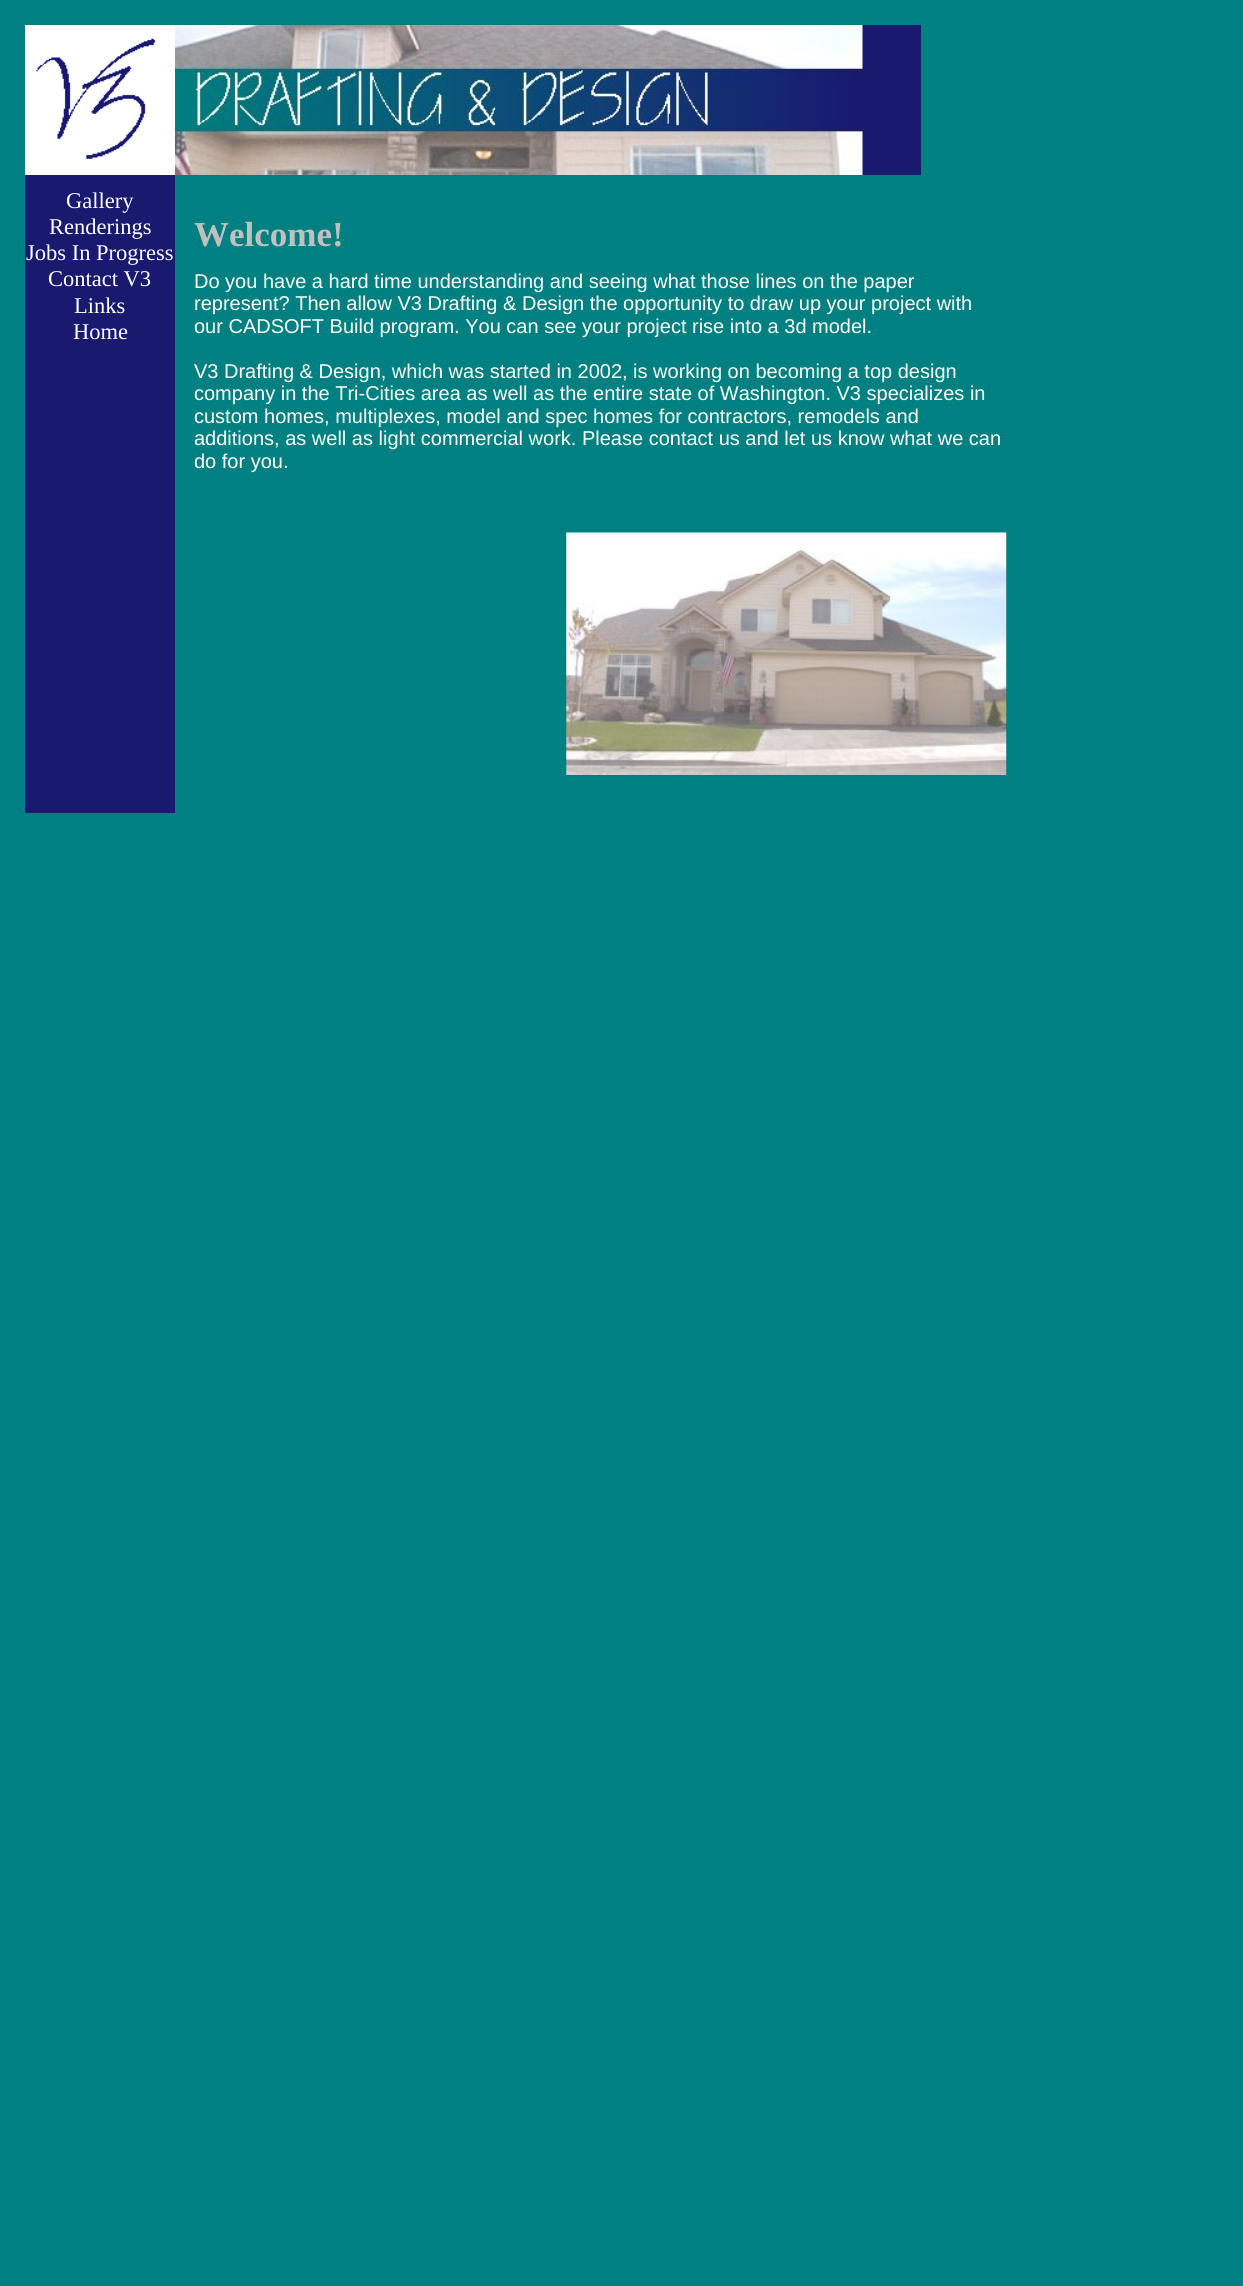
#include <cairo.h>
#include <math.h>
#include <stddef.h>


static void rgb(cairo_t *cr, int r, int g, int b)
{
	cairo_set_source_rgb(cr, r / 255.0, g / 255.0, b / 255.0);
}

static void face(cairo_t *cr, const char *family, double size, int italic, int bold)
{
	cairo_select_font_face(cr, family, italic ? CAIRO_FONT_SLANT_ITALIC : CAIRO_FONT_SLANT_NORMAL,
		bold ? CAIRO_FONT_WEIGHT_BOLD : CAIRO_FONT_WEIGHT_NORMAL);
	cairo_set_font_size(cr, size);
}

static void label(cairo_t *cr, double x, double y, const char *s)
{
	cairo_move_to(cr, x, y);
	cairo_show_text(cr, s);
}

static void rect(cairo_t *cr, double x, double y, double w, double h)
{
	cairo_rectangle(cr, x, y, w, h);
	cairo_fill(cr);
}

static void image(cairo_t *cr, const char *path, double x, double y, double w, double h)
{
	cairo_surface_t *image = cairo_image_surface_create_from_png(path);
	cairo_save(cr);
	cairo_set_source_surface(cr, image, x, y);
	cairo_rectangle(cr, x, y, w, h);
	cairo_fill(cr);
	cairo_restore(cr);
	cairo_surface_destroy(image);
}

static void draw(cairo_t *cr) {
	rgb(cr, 0, 128, 128);
	cairo_paint(cr);
	image(cr, "image0.png", 25, 25, 150, 150);
	rgb(cr, 25, 25, 112);
	rect(cr, 862, 25, 59, 150);
	image(cr, "image1.png", 175, 25, 688, 150);
	rect(cr, 25, 175, 150, 638);
	face(cr, "Liberation Serif", 22.5, 0, 0);
	rgb(cr, 255, 255, 255);
	label(cr, 66, 208, "Gallery");
	label(cr, 49, 234, "Renderings");
	label(cr, 26, 260, "Jobs In Progress");
	label(cr, 48, 286, "Contact V3");
	label(cr, 74, 313, "Links");
	label(cr, 73, 339, "Home");
	image(cr, "image2.png", 566, 532, 441, 243);
	face(cr, "Liberation Serif", 35, 0, 1);
	rgb(cr, 192, 192, 192);
	label(cr, 194, 246, "Welcome!");
	face(cr, "Liberation Sans", 20, 0, 0);
	rgb(cr, 255, 255, 255);
	label(cr, 194, 288, "Do you have a hard time understanding and seeing what those lines on the paper");
	label(cr, 194, 310, "represent? Then allow V3 Drafting & Design the opportunity to draw up your project with");
	label(cr, 194, 333, "our CADSOFT Build program. You can see your project rise into a 3d model.");
	label(cr, 194, 378, "V3 Drafting & Design, which was started in 2002, is working on becoming a top design");
	label(cr, 194, 400, "company in the Tri-Cities area as well as the entire state of Washington. V3 specializes in");
	label(cr, 194, 423, "custom homes, multiplexes, model and spec homes for contractors, remodels and");
	label(cr, 194, 445, "additions, as well as light commercial work. Please contact us and let us know what we can");
	label(cr, 194, 468, "do for you.");
}

int main(void) {
	cairo_surface_t *surface = cairo_image_surface_create(CAIRO_FORMAT_RGB24, 1243, 2286);
	cairo_t *cr = cairo_create(surface);
	cairo_font_options_t *options = cairo_font_options_create();
	cairo_font_options_set_hint_metrics(options, CAIRO_HINT_METRICS_OFF);
	cairo_font_options_set_hint_style(options, CAIRO_HINT_STYLE_NONE);
	cairo_set_font_options(cr, options);
	cairo_set_miter_limit(cr, 4);
	draw(cr);
	cairo_surface_write_to_png(surface, "render.png");
	cairo_font_options_destroy(options);
	cairo_destroy(cr);
	cairo_surface_destroy(surface);
	return 0;
}
